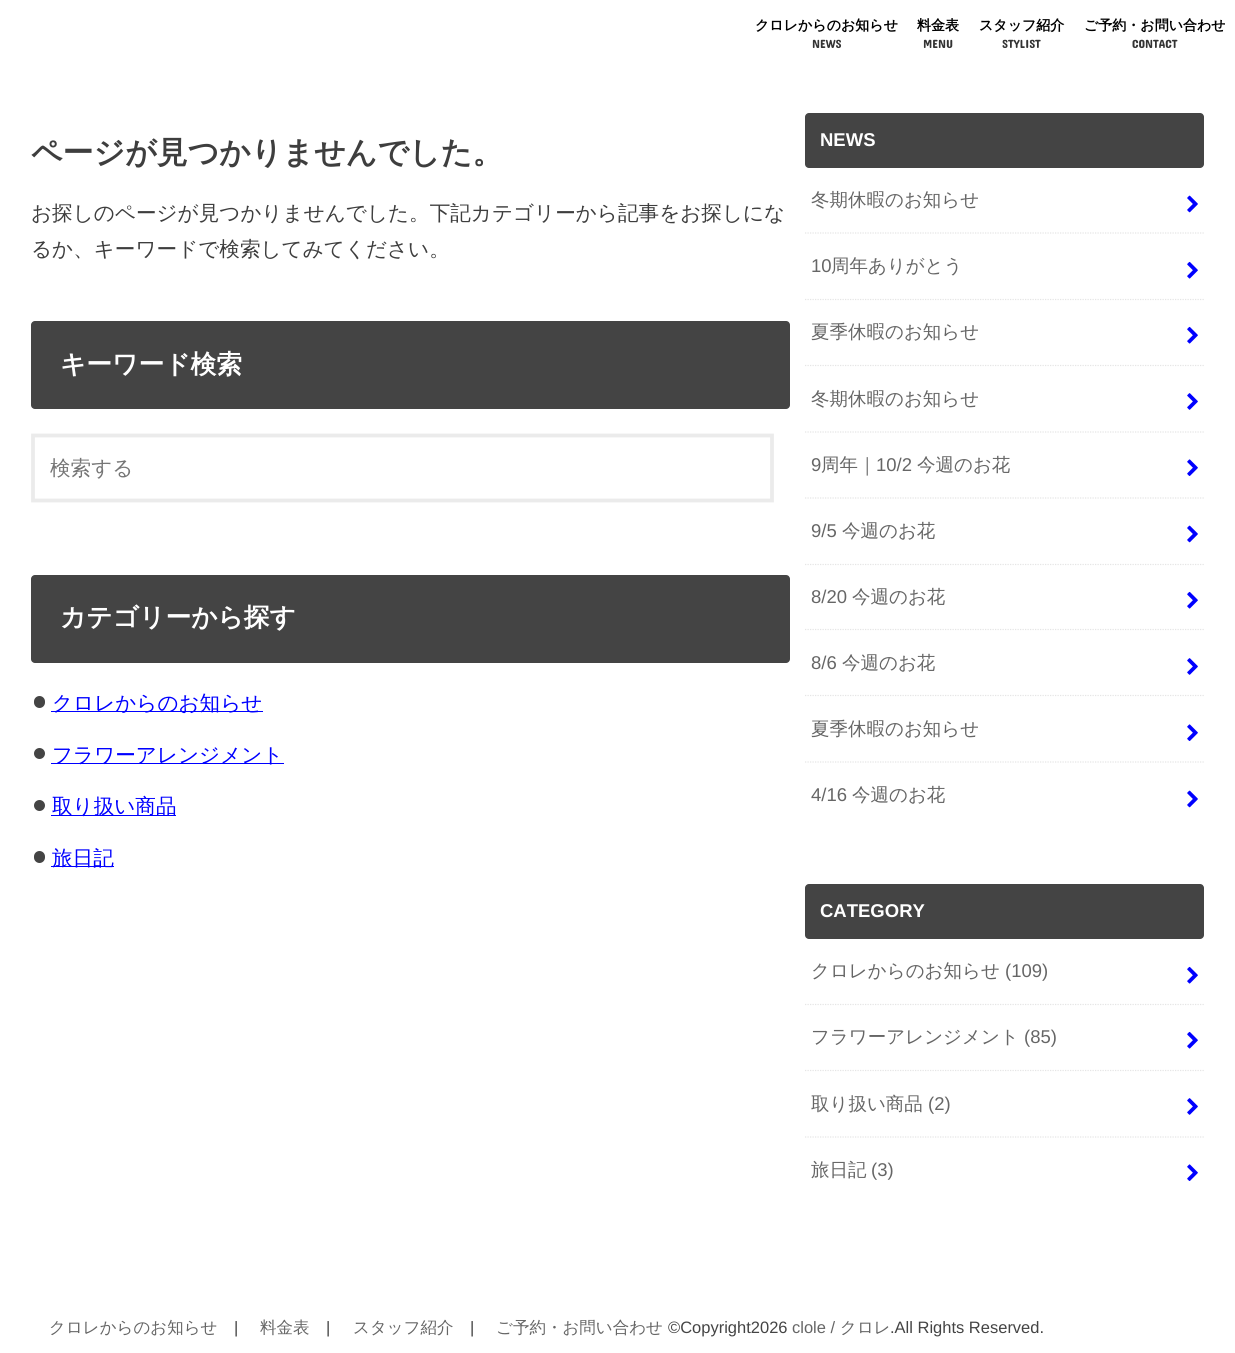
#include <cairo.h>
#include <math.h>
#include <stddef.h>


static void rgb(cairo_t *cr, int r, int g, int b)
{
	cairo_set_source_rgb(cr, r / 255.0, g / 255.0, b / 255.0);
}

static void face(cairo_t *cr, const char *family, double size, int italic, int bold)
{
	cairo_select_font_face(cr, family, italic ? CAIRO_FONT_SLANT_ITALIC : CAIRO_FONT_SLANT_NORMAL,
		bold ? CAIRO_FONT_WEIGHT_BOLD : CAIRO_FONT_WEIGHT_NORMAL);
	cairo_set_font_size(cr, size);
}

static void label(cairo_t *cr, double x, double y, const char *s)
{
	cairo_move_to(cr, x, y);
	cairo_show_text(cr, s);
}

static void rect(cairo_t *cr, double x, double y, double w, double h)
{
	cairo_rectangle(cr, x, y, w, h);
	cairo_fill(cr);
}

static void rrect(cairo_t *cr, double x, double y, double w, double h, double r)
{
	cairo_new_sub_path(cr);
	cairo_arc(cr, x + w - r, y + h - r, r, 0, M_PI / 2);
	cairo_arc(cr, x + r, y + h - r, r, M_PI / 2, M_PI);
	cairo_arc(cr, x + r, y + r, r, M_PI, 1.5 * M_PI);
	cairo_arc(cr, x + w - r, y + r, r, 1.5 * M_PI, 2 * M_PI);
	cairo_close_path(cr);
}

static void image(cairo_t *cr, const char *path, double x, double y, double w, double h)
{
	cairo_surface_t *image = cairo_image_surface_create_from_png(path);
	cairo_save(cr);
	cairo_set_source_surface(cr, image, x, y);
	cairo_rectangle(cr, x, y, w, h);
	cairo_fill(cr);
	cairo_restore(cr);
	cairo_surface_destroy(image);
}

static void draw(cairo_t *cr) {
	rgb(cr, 255, 255, 255);
	cairo_paint(cr);
	face(cr, "WenQuanYi Zen Hei", 14, 0, 1);
	rgb(cr, 0, 0, 0);
	label(cr, 755, 30, "クロレからのお知らせ");
	face(cr, "Concert One", 12, 0, 0);
	rgb(cr, 51, 51, 51);
	label(cr, 812, 48, "NEWS");
	face(cr, "WenQuanYi Zen Hei", 14, 0, 1);
	rgb(cr, 0, 0, 0);
	label(cr, 917, 30, "料金表");
	face(cr, "Concert One", 12, 0, 0);
	rgb(cr, 51, 51, 51);
	label(cr, 923, 48, "MENU");
	face(cr, "WenQuanYi Zen Hei", 14, 0, 1);
	rgb(cr, 0, 0, 0);
	label(cr, 979, 30, "スタッフ紹介");
	face(cr, "Concert One", 12, 0, 0);
	rgb(cr, 51, 51, 51);
	label(cr, 1002, 48, "STYLIST");
	face(cr, "WenQuanYi Zen Hei", 14, 0, 1);
	rgb(cr, 0, 0, 0);
	label(cr, 1084, 30, "ご予約・お問い合わせ");
	face(cr, "Concert One", 12, 0, 0);
	rgb(cr, 51, 51, 51);
	label(cr, 1132, 48, "CONTACT");
	face(cr, "WenQuanYi Zen Hei", 30.9, 0, 1);
	rgb(cr, 62, 62, 62);
	label(cr, 31, 163, "ページが見つかりませんでした。");
	face(cr, "WenQuanYi Zen Hei Medium", 20.6, 0, 0);
	label(cr, 31, 220, "お探しのページが見つかりませんでした。下記カテゴリーから記事をお探しにな");
	label(cr, 31, 256, "るか、キーワードで検索してみてください。");
	rgb(cr, 68, 68, 68);
	rrect(cr, 31, 321, 759, 88, 4);
	cairo_fill(cr);
	face(cr, "WenQuanYi Zen Hei", 25.75, 0, 1);
	rgb(cr, 255, 255, 255);
	label(cr, 60, 373, "キーワード検索");
	cairo_new_path(cr);
	cairo_move_to(cr, 33, 435.5);
	cairo_line_to(cr, 772, 435.5);
	cairo_line_to(cr, 772, 500.5);
	cairo_line_to(cr, 33, 500.5);
	cairo_close_path(cr);
	rgb(cr, 235, 235, 235);
	cairo_set_line_width(cr, 3.8);
	cairo_stroke(cr);
	face(cr, "WenQuanYi Zen Hei Medium", 20.6, 0, 0);
	rgb(cr, 117, 117, 117);
	label(cr, 50, 475, "検索する");
	rgb(cr, 68, 68, 68);
	rrect(cr, 31, 575, 759, 88, 4);
	cairo_fill(cr);
	face(cr, "WenQuanYi Zen Hei", 25.75, 0, 1);
	rgb(cr, 255, 255, 255);
	label(cr, 60, 626, "カテゴリーから探す");
	rgb(cr, 68, 68, 68);
	rrect(cr, 34, 696, 11, 12, 5.5);
	cairo_fill(cr);
	rgb(cr, 0, 0, 255);
	rect(cr, 51, 711, 212, 1);
	face(cr, "WenQuanYi Zen Hei Medium", 20.6, 0, 0);
	label(cr, 52, 710, "クロレからのお知らせ");
	rgb(cr, 68, 68, 68);
	cairo_new_path(cr);
	cairo_arc(cr, 39.5, 753.5, 5.5, 0, 2 * M_PI);
	cairo_fill(cr);
	rgb(cr, 0, 0, 255);
	rect(cr, 51, 763, 233, 1);
	label(cr, 52, 762, "フラワーアレンジメント");
	rgb(cr, 68, 68, 68);
	cairo_new_path(cr);
	cairo_arc(cr, 39.5, 805.5, 5.5, 0, 2 * M_PI);
	cairo_fill(cr);
	rgb(cr, 0, 0, 255);
	rect(cr, 51, 815, 125, 1);
	label(cr, 52, 813, "取り扱い商品");
	rgb(cr, 68, 68, 68);
	rrect(cr, 34, 851, 11, 12, 5.5);
	cairo_fill(cr);
	rgb(cr, 0, 0, 255);
	rect(cr, 51, 866, 63, 1);
	label(cr, 52, 865, "旅日記");
	rgb(cr, 68, 68, 68);
	rrect(cr, 805, 113, 399, 55, 4);
	cairo_fill(cr);
	face(cr, "Liberation Sans", 18.5, 0, 1);
	rgb(cr, 255, 255, 255);
	label(cr, 820, 146, "NEWS");
	cairo_new_path(cr);
	cairo_move_to(cr, 805, 233);
	cairo_line_to(cr, 1204, 233);
	rgb(cr, 229, 229, 229);
	cairo_set_line_width(cr, 1.2);
	cairo_set_dash(cr, (double[]){1.25, 1.25}, 2, 0);
	cairo_stroke(cr);
	face(cr, "WenQuanYi Zen Hei Medium", 18.5, 0, 0);
	rgb(cr, 102, 102, 102);
	label(cr, 811, 206, "冬期休暇のお知らせ");
	image(cr, "image0.png", 1187, 195, 11, 18);
	cairo_new_path(cr);
	cairo_move_to(cr, 805, 299.5);
	cairo_line_to(cr, 1204, 299.5);
	rgb(cr, 229, 229, 229);
	cairo_stroke(cr);
	face(cr, "Liberation Sans", 18.5, 0, 0);
	rgb(cr, 102, 102, 102);
	label(cr, 811, 272, "10");
	face(cr, "WenQuanYi Zen Hei Medium", 18.5, 0, 0);
	label(cr, 831, 272, "周年ありがとう");
	image(cr, "image1.png", 1187, 261, 11, 18);
	cairo_new_path(cr);
	cairo_move_to(cr, 805, 365.5);
	cairo_line_to(cr, 1204, 365.5);
	rgb(cr, 229, 229, 229);
	cairo_stroke(cr);
	rgb(cr, 102, 102, 102);
	label(cr, 811, 338, "夏季休暇のお知らせ");
	image(cr, "image1.png", 1187, 326, 11, 18);
	cairo_new_path(cr);
	cairo_move_to(cr, 805, 432);
	cairo_line_to(cr, 1204, 432);
	rgb(cr, 229, 229, 229);
	cairo_stroke(cr);
	rgb(cr, 102, 102, 102);
	label(cr, 811, 405, "冬期休暇のお知らせ");
	image(cr, "image2.png", 1187, 393, 11, 17);
	cairo_new_path(cr);
	cairo_move_to(cr, 805, 498);
	cairo_line_to(cr, 1204, 498);
	rgb(cr, 229, 229, 229);
	cairo_stroke(cr);
	face(cr, "Liberation Sans", 18.5, 0, 0);
	rgb(cr, 102, 102, 102);
	label(cr, 811, 471, "9");
	face(cr, "WenQuanYi Zen Hei Medium", 18.5, 0, 0);
	label(cr, 821, 471, "周年｜");
	face(cr, "Liberation Sans", 18.5, 0, 0);
	label(cr, 876, 471, "10/2");
	face(cr, "WenQuanYi Zen Hei Medium", 18.5, 0, 0);
	label(cr, 917, 471, "今週のお花");
	image(cr, "image3.png", 1187, 459, 11, 17);
	cairo_new_path(cr);
	cairo_move_to(cr, 805, 564.5);
	cairo_line_to(cr, 1204, 564.5);
	rgb(cr, 229, 229, 229);
	cairo_stroke(cr);
	face(cr, "Liberation Sans", 18.5, 0, 0);
	rgb(cr, 102, 102, 102);
	label(cr, 811, 537, "9/5");
	face(cr, "WenQuanYi Zen Hei Medium", 18.5, 0, 0);
	label(cr, 842, 537, "今週のお花");
	image(cr, "image0.png", 1187, 525, 11, 18);
	cairo_new_path(cr);
	cairo_move_to(cr, 805, 629.5);
	cairo_line_to(cr, 1204, 629.5);
	rgb(cr, 229, 229, 229);
	cairo_stroke(cr);
	face(cr, "Liberation Sans", 18.5, 0, 0);
	rgb(cr, 102, 102, 102);
	label(cr, 811, 603, "8/20");
	face(cr, "WenQuanYi Zen Hei Medium", 18.5, 0, 0);
	label(cr, 852, 603, "今週のお花");
	image(cr, "image1.png", 1187, 591, 11, 18);
	cairo_new_path(cr);
	cairo_move_to(cr, 805, 695.5);
	cairo_line_to(cr, 1204, 695.5);
	rgb(cr, 229, 229, 229);
	cairo_stroke(cr);
	face(cr, "Liberation Sans", 18.5, 0, 0);
	rgb(cr, 102, 102, 102);
	label(cr, 811, 669, "8/6");
	face(cr, "WenQuanYi Zen Hei Medium", 18.5, 0, 0);
	label(cr, 842, 669, "今週のお花");
	image(cr, "image2.png", 1187, 658, 11, 17);
	cairo_new_path(cr);
	cairo_move_to(cr, 805, 762);
	cairo_line_to(cr, 1204, 762);
	rgb(cr, 229, 229, 229);
	cairo_stroke(cr);
	rgb(cr, 102, 102, 102);
	label(cr, 811, 735, "夏季休暇のお知らせ");
	image(cr, "image3.png", 1187, 724, 11, 17);
	face(cr, "Liberation Sans", 18.5, 0, 0);
	label(cr, 811, 801, "4/16");
	face(cr, "WenQuanYi Zen Hei Medium", 18.5, 0, 0);
	label(cr, 852, 801, "今週のお花");
	image(cr, "image0.png", 1187, 790, 11, 18);
	rgb(cr, 68, 68, 68);
	rrect(cr, 805, 884, 399, 55, 4);
	cairo_fill(cr);
	face(cr, "Liberation Sans", 18.5, 0, 1);
	rgb(cr, 255, 255, 255);
	label(cr, 820, 917, "CATEGORY");
	cairo_new_path(cr);
	cairo_move_to(cr, 805, 1004.5);
	cairo_line_to(cr, 1204, 1004.5);
	rgb(cr, 229, 229, 229);
	cairo_stroke(cr);
	face(cr, "WenQuanYi Zen Hei Medium", 18.5, 0, 0);
	rgb(cr, 102, 102, 102);
	label(cr, 811, 977, "クロレからのお知らせ");
	face(cr, "Liberation Sans", 18.5, 0, 0);
	label(cr, 1005, 977, "(109)");
	image(cr, "image1.png", 1187, 966, 11, 18);
	cairo_new_path(cr);
	cairo_move_to(cr, 805, 1070.5);
	cairo_line_to(cr, 1204, 1070.5);
	rgb(cr, 229, 229, 229);
	cairo_stroke(cr);
	face(cr, "WenQuanYi Zen Hei Medium", 18.5, 0, 0);
	rgb(cr, 102, 102, 102);
	label(cr, 811, 1043, "フラワーアレンジメント");
	face(cr, "Liberation Sans", 18.5, 0, 0);
	label(cr, 1024, 1043, "(85)");
	image(cr, "image1.png", 1187, 1031, 11, 18);
	cairo_new_path(cr);
	cairo_move_to(cr, 805, 1137);
	cairo_line_to(cr, 1204, 1137);
	rgb(cr, 229, 229, 229);
	cairo_stroke(cr);
	face(cr, "WenQuanYi Zen Hei Medium", 18.5, 0, 0);
	rgb(cr, 102, 102, 102);
	label(cr, 811, 1110, "取り扱い商品");
	face(cr, "Liberation Sans", 18.5, 0, 0);
	label(cr, 928, 1110, "(2)");
	image(cr, "image2.png", 1187, 1098, 11, 17);
	face(cr, "WenQuanYi Zen Hei Medium", 18.5, 0, 0);
	label(cr, 811, 1176, "旅日記");
	face(cr, "Liberation Sans", 18.5, 0, 0);
	label(cr, 871, 1176, "(3)");
	image(cr, "image3.png", 1187, 1164, 11, 17);
	face(cr, "WenQuanYi Zen Hei Medium", 16.5, 0, 0);
	label(cr, 49, 1333, "クロレからのお知らせ");
	face(cr, "Liberation Sans", 16.5, 0, 0);
	rgb(cr, 68, 68, 68);
	label(cr, 234, 1333, "|");
	face(cr, "WenQuanYi Zen Hei Medium", 16.5, 0, 0);
	rgb(cr, 102, 102, 102);
	label(cr, 260, 1333, "料金表");
	face(cr, "Liberation Sans", 16.5, 0, 0);
	rgb(cr, 68, 68, 68);
	label(cr, 326, 1333, "|");
	face(cr, "WenQuanYi Zen Hei Medium", 16.5, 0, 0);
	rgb(cr, 102, 102, 102);
	label(cr, 353, 1333, "スタッフ紹介");
	face(cr, "Liberation Sans", 16.5, 0, 0);
	rgb(cr, 68, 68, 68);
	label(cr, 470, 1333, "|");
	face(cr, "WenQuanYi Zen Hei Medium", 16.5, 0, 0);
	rgb(cr, 102, 102, 102);
	label(cr, 496, 1333, "ご予約・お問い合わせ");
	face(cr, "Liberation Sans", 16.5, 0, 0);
	rgb(cr, 68, 68, 68);
	label(cr, 668, 1333, "©Copyright2026");
	rgb(cr, 102, 102, 102);
	label(cr, 792, 1333, "clole /");
	face(cr, "WenQuanYi Zen Hei Medium", 16.5, 0, 0);
	label(cr, 840, 1333, "クロレ");
	face(cr, "Liberation Sans", 16.5, 0, 0);
	rgb(cr, 68, 68, 68);
	label(cr, 890, 1333, ".All Rights Reserved.");
}

int main(void) {
	cairo_surface_t *surface = cairo_image_surface_create(CAIRO_FORMAT_RGB24, 1235, 1353);
	cairo_t *cr = cairo_create(surface);
	cairo_font_options_t *options = cairo_font_options_create();
	cairo_font_options_set_hint_metrics(options, CAIRO_HINT_METRICS_OFF);
	cairo_font_options_set_hint_style(options, CAIRO_HINT_STYLE_NONE);
	cairo_set_font_options(cr, options);
	cairo_set_miter_limit(cr, 4);
	draw(cr);
	cairo_surface_write_to_png(surface, "render.png");
	cairo_font_options_destroy(options);
	cairo_destroy(cr);
	cairo_surface_destroy(surface);
	return 0;
}
